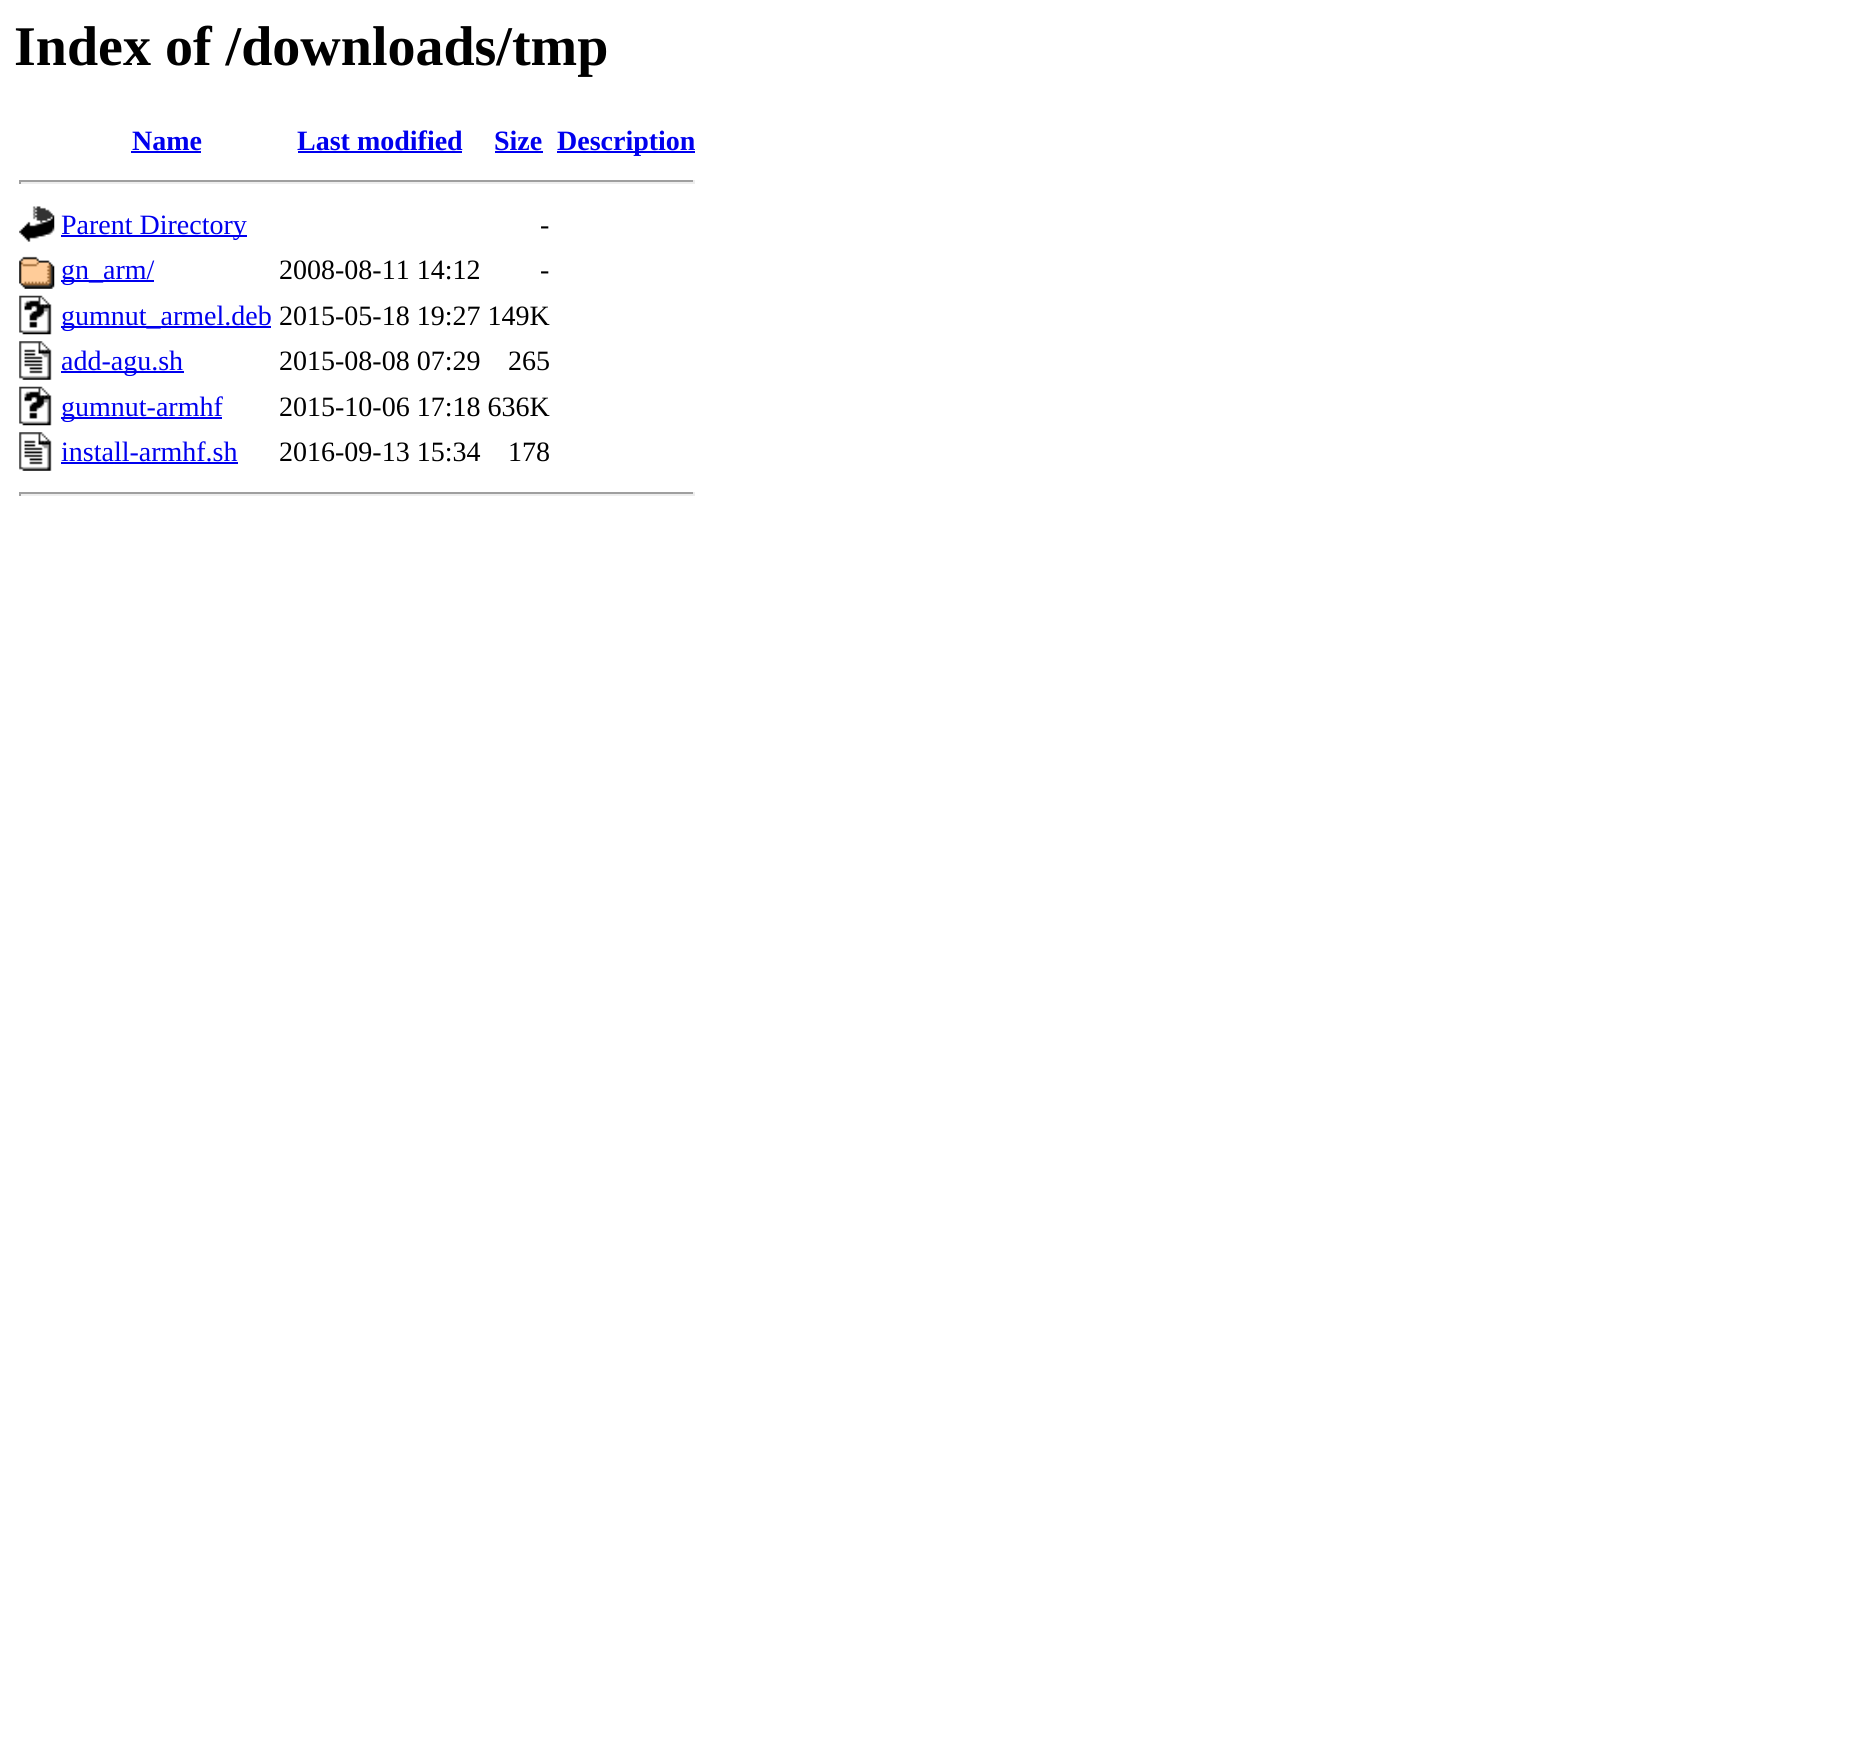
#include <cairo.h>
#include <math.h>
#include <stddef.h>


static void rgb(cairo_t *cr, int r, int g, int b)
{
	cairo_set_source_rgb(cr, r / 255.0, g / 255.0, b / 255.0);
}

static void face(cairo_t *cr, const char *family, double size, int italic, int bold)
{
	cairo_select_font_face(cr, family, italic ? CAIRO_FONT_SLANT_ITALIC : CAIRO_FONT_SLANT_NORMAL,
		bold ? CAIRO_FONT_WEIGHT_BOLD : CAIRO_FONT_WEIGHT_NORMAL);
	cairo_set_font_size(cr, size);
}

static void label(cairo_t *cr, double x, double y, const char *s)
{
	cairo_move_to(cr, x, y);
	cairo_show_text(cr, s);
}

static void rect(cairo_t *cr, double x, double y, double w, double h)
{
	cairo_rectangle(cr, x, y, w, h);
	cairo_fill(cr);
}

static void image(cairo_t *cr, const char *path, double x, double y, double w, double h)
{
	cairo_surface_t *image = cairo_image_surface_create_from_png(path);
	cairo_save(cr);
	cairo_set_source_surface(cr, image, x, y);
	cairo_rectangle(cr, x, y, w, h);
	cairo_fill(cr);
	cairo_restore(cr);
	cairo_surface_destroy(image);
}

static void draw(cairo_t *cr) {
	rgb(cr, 255, 255, 255);
	cairo_paint(cr);
	face(cr, "Liberation Serif", 56, 0, 1);
	rgb(cr, 0, 0, 0);
	label(cr, 14, 65, "Index of /downloads/tmp");
	face(cr, "Liberation Serif", 28, 0, 1);
	rgb(cr, 0, 0, 238);
	label(cr, 132, 150, "Name");
	rect(cr, 131, 151, 70, 2);
	label(cr, 297, 150, "Last modified");
	rect(cr, 298, 151, 164, 2);
	label(cr, 494, 150, "Size");
	rect(cr, 495, 151, 48, 2);
	rect(cr, 557, 151, 138, 2);
	label(cr, 557, 150, "Description");
	rgb(cr, 159, 159, 159);
	rect(cr, 19, 180, 676, 2);
	rgb(cr, 238, 238, 238);
	rect(cr, 693, 180, 2, 4);
	rect(cr, 19, 182, 676, 2);
	rgb(cr, 159, 159, 159);
	rect(cr, 19, 180, 2, 4);
	image(cr, "image0.png", 19, 206, 36, 36);
	rgb(cr, 0, 0, 238);
	rect(cr, 61, 235, 186, 2);
	face(cr, "Liberation Serif", 28, 0, 0);
	label(cr, 61, 234, "Parent Directory");
	rgb(cr, 0, 0, 0);
	label(cr, 540, 234, "-");
	image(cr, "image1.png", 19, 256, 36, 33);
	rgb(cr, 0, 0, 238);
	rect(cr, 61, 280, 93, 2);
	label(cr, 61, 279, "gn_arm/");
	rgb(cr, 0, 0, 0);
	label(cr, 279, 279, "2008-08-11 14:12");
	label(cr, 540, 279, "-");
	image(cr, "image2.png", 19, 295, 33, 40);
	rgb(cr, 0, 0, 238);
	rect(cr, 61, 326, 210, 2);
	label(cr, 61, 325, "gumnut_armel.deb");
	rgb(cr, 0, 0, 0);
	label(cr, 279, 325, "2015-05-18 19:27 149K");
	image(cr, "image3.png", 19, 341, 33, 39);
	rgb(cr, 0, 0, 238);
	rect(cr, 61, 371, 123, 2);
	label(cr, 61, 370, "add-agu.sh");
	rgb(cr, 0, 0, 0);
	label(cr, 279, 370, "2015-08-08 07:29");
	label(cr, 508, 370, "265");
	image(cr, "image2.png", 19, 386, 33, 40);
	rgb(cr, 0, 0, 238);
	rect(cr, 61, 417, 161, 2);
	label(cr, 61, 416, "gumnut-armhf");
	rgb(cr, 0, 0, 0);
	label(cr, 279, 416, "2015-10-06 17:18 636K");
	image(cr, "image3.png", 19, 432, 33, 39);
	rgb(cr, 0, 0, 238);
	label(cr, 61, 461, "install-armhf.sh");
	rect(cr, 61, 462, 177, 2);
	rgb(cr, 0, 0, 0);
	label(cr, 279, 461, "2016-09-13 15:34");
	label(cr, 508, 461, "178");
	rgb(cr, 159, 159, 159);
	rect(cr, 19, 492, 676, 2);
	rgb(cr, 238, 238, 238);
	rect(cr, 693, 492, 2, 4);
	rect(cr, 19, 494, 676, 2);
	rgb(cr, 159, 159, 159);
	rect(cr, 19, 492, 2, 4);
}

int main(void) {
	cairo_surface_t *surface = cairo_image_surface_create(CAIRO_FORMAT_RGB24, 1873, 1743);
	cairo_t *cr = cairo_create(surface);
	cairo_font_options_t *options = cairo_font_options_create();
	cairo_font_options_set_hint_metrics(options, CAIRO_HINT_METRICS_OFF);
	cairo_font_options_set_hint_style(options, CAIRO_HINT_STYLE_NONE);
	cairo_set_font_options(cr, options);
	cairo_set_miter_limit(cr, 4);
	draw(cr);
	cairo_surface_write_to_png(surface, "render.png");
	cairo_font_options_destroy(options);
	cairo_destroy(cr);
	cairo_surface_destroy(surface);
	return 0;
}
